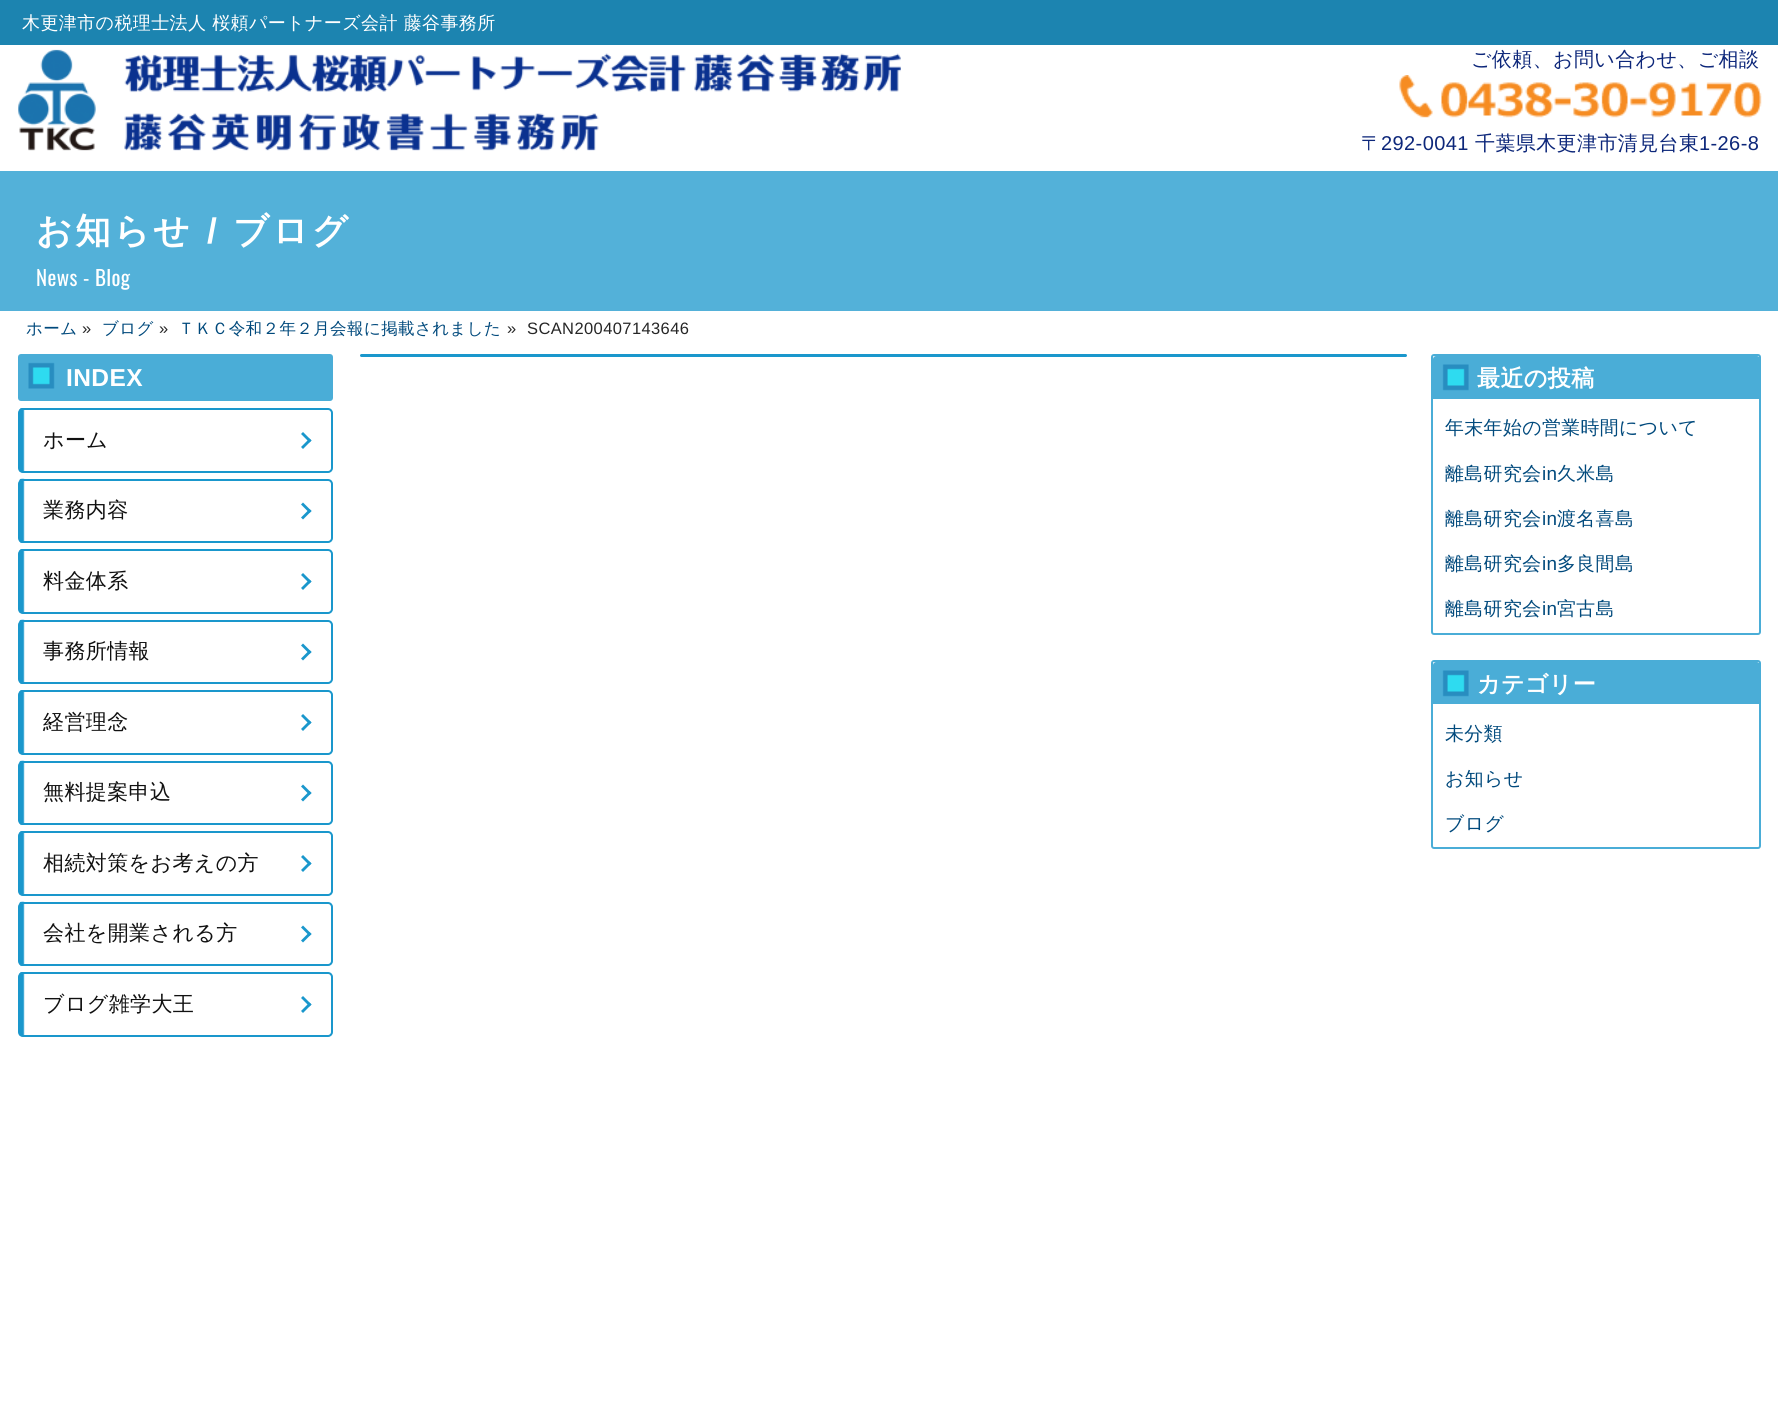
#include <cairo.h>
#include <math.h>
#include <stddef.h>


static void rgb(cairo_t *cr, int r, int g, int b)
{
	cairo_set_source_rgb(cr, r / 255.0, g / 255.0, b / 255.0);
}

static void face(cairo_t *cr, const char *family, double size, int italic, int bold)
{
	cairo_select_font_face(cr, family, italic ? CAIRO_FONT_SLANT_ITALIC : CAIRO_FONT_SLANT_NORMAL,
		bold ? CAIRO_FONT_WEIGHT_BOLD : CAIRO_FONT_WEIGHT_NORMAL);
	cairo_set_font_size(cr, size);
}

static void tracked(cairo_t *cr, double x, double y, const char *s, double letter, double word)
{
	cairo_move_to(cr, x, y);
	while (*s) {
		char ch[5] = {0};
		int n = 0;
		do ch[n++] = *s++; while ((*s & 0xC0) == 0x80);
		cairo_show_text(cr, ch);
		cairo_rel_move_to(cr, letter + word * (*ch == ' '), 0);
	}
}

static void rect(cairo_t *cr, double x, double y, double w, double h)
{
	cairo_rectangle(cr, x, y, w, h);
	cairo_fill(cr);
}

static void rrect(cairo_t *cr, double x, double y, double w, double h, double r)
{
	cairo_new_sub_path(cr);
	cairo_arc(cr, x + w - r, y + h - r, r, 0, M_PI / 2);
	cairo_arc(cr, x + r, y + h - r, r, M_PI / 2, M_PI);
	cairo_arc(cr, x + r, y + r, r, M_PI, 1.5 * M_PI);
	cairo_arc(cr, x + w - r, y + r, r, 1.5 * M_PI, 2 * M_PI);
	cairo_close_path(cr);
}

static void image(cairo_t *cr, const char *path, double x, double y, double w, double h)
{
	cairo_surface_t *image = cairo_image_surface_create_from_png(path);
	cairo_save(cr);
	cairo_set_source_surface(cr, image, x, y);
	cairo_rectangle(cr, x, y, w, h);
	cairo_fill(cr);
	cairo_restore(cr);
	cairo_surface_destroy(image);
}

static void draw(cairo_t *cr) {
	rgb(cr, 255, 255, 255);
	cairo_paint(cr);
	rgb(cr, 28, 132, 176);
	rect(cr, 0, 0, 1778, 45);
	face(cr, "WenQuanYi Zen Hei Medium", 18, 0, 0);
	rgb(cr, 255, 255, 255);
	tracked(cr, 22, 29, "木更津市の税理士法人 桜頼パートナーズ会計 藤谷事務所", 0.4, 0);
	image(cr, "image0.png", 18, 49, 883, 102);
	face(cr, "WenQuanYi Zen Hei Medium", 20, 0, 0);
	rgb(cr, 13, 39, 122);
	tracked(cr, 1471, 66, "ご依頼、お問い合わせ、ご相談", 0.4, 0);
	image(cr, "image1.png", 1399, 75, 363, 43);
	tracked(cr, 1361, 150, "〒", 0.4, 0);
	face(cr, "Liberation Sans", 20, 0, 0);
	tracked(cr, 1381, 150, "292-0041", 0.4, 0);
	face(cr, "WenQuanYi Zen Hei Medium", 20, 0, 0);
	tracked(cr, 1475, 150, "千葉県木更津市清見台東", 0.4, 0);
	face(cr, "Liberation Sans", 20, 0, 0);
	tracked(cr, 1699, 150, "1-26-8", 0.4, 0);
	rgb(cr, 83, 177, 217);
	rect(cr, 0, 171, 1778, 140);
	face(cr, "WenQuanYi Zen Hei", 35.5, 0, 1);
	rgb(cr, 255, 255, 255);
	tracked(cr, 36, 243, "お知らせ", 3, 0);
	face(cr, "Liberation Sans", 35.5, 0, 1);
	tracked(cr, 207, 243, "/", 3, 0);
	face(cr, "WenQuanYi Zen Hei", 35.5, 0, 1);
	tracked(cr, 233, 243, "ブログ", 3, 0);
	face(cr, "Oswald", 21, 0, 0);
	tracked(cr, 36, 286, "News - Blog", 0.4, 0);
	face(cr, "WenQuanYi Zen Hei Medium", 16.5, 0, 0);
	rgb(cr, 0, 73, 124);
	tracked(cr, 26, 334, "ホーム", 0.4, 0);
	face(cr, "Liberation Sans", 16.5, 0, 0);
	rgb(cr, 38, 38, 38);
	tracked(cr, 82, 334, "»", 0.4, 0);
	face(cr, "WenQuanYi Zen Hei Medium", 16.5, 0, 0);
	rgb(cr, 0, 73, 124);
	tracked(cr, 102, 334, "ブログ", 0.4, 0);
	face(cr, "Liberation Sans", 16.5, 0, 0);
	rgb(cr, 38, 38, 38);
	tracked(cr, 159, 334, "»", 0.4, 0);
	face(cr, "WenQuanYi Zen Hei Medium", 16.5, 0, 0);
	rgb(cr, 0, 73, 124);
	tracked(cr, 178, 334, "ＴＫＣ令和２年２月会報に掲載されました", 0.4, 0);
	face(cr, "Liberation Sans", 16.5, 0, 0);
	rgb(cr, 38, 38, 38);
	tracked(cr, 507, 334, "»", 0.4, 0);
	tracked(cr, 527, 334, "SCAN200407143646", 0.4, 0);
	rgb(cr, 74, 173, 215);
	rrect(cr, 18, 354, 315, 47, 3);
	cairo_fill(cr);
	image(cr, "image2.png", 28, 362, 27, 27);
	face(cr, "Liberation Sans", 24.5, 0, 1);
	rgb(cr, 255, 255, 255);
	tracked(cr, 66, 386, "INDEX", 0.4, 0);
	image(cr, "image3.png", 19, 408, 6, 65);
	rrect(cr, 19, 409, 313, 63, 4);
	rgb(cr, 26, 151, 204);
	cairo_stroke(cr);
	face(cr, "WenQuanYi Zen Hei Medium", 21, 0, 0);
	rgb(cr, 17, 17, 17);
	tracked(cr, 43, 447, "ホーム", 0.4, 0);
	rgb(cr, 26, 151, 204);
	cairo_new_path(cr);
	cairo_move_to(cr, 301, 434);
	cairo_line_to(cr, 303, 432);
	cairo_line_to(cr, 311.5, 440.5);
	cairo_line_to(cr, 309.5, 442.5);
	cairo_close_path(cr);
	cairo_fill(cr);
	cairo_new_path(cr);
	cairo_move_to(cr, 301, 447);
	cairo_line_to(cr, 309.5, 438.5);
	cairo_line_to(cr, 311.5, 440.5);
	cairo_line_to(cr, 303, 449);
	cairo_close_path(cr);
	cairo_fill(cr);
	image(cr, "image4.png", 19, 478, 6, 65);
	rrect(cr, 19, 480, 313, 62, 4);
	cairo_stroke(cr);
	rgb(cr, 17, 17, 17);
	tracked(cr, 43, 517, "業務内容", 0.4, 0);
	rgb(cr, 26, 151, 204);
	cairo_new_path(cr);
	cairo_move_to(cr, 301, 504.5);
	cairo_line_to(cr, 303, 502.5);
	cairo_line_to(cr, 311.5, 511);
	cairo_line_to(cr, 309.5, 513);
	cairo_close_path(cr);
	cairo_fill(cr);
	cairo_new_path(cr);
	cairo_move_to(cr, 301, 517.5);
	cairo_line_to(cr, 309.5, 509);
	cairo_line_to(cr, 311.5, 511);
	cairo_line_to(cr, 303, 519.5);
	cairo_close_path(cr);
	cairo_fill(cr);
	image(cr, "image3.png", 19, 549, 6, 65);
	rrect(cr, 19, 550, 313, 63, 4);
	cairo_stroke(cr);
	rgb(cr, 17, 17, 17);
	tracked(cr, 43, 588, "料金体系", 0.4, 0);
	rgb(cr, 26, 151, 204);
	cairo_new_path(cr);
	cairo_move_to(cr, 301, 575);
	cairo_line_to(cr, 303, 573);
	cairo_line_to(cr, 311.5, 581.5);
	cairo_line_to(cr, 309.5, 583.5);
	cairo_close_path(cr);
	cairo_fill(cr);
	cairo_new_path(cr);
	cairo_move_to(cr, 301, 588);
	cairo_line_to(cr, 309.5, 579.5);
	cairo_line_to(cr, 311.5, 581.5);
	cairo_line_to(cr, 303, 590);
	cairo_close_path(cr);
	cairo_fill(cr);
	image(cr, "image4.png", 19, 619, 6, 65);
	rrect(cr, 19, 621, 313, 62, 4);
	cairo_stroke(cr);
	rgb(cr, 17, 17, 17);
	tracked(cr, 43, 658, "事務所情報", 0.4, 0);
	rgb(cr, 26, 151, 204);
	cairo_new_path(cr);
	cairo_move_to(cr, 301, 645.5);
	cairo_line_to(cr, 303, 643.5);
	cairo_line_to(cr, 311.5, 652);
	cairo_line_to(cr, 309.5, 654);
	cairo_close_path(cr);
	cairo_fill(cr);
	cairo_new_path(cr);
	cairo_move_to(cr, 301, 658.5);
	cairo_line_to(cr, 309.5, 650);
	cairo_line_to(cr, 311.5, 652);
	cairo_line_to(cr, 303, 660.5);
	cairo_close_path(cr);
	cairo_fill(cr);
	image(cr, "image3.png", 19, 690, 6, 65);
	rrect(cr, 19, 691, 313, 63, 4);
	cairo_stroke(cr);
	rgb(cr, 17, 17, 17);
	tracked(cr, 43, 729, "経営理念", 0.4, 0);
	rgb(cr, 26, 151, 204);
	cairo_new_path(cr);
	cairo_move_to(cr, 301, 716);
	cairo_line_to(cr, 303, 714);
	cairo_line_to(cr, 311.5, 722.5);
	cairo_line_to(cr, 309.5, 724.5);
	cairo_close_path(cr);
	cairo_fill(cr);
	cairo_new_path(cr);
	cairo_move_to(cr, 301, 729);
	cairo_line_to(cr, 309.5, 720.5);
	cairo_line_to(cr, 311.5, 722.5);
	cairo_line_to(cr, 303, 731);
	cairo_close_path(cr);
	cairo_fill(cr);
	image(cr, "image5.png", 19, 760, 6, 65);
	rrect(cr, 19, 762, 313, 62, 4);
	cairo_stroke(cr);
	rgb(cr, 17, 17, 17);
	tracked(cr, 43, 799, "無料提案申込", 0.4, 0);
	rgb(cr, 26, 151, 204);
	cairo_new_path(cr);
	cairo_move_to(cr, 301, 786.5);
	cairo_line_to(cr, 303, 784.5);
	cairo_line_to(cr, 311.5, 793);
	cairo_line_to(cr, 309.5, 795);
	cairo_close_path(cr);
	cairo_fill(cr);
	cairo_new_path(cr);
	cairo_move_to(cr, 301, 799.5);
	cairo_line_to(cr, 309.5, 791);
	cairo_line_to(cr, 311.5, 793);
	cairo_line_to(cr, 303, 801.5);
	cairo_close_path(cr);
	cairo_fill(cr);
	image(cr, "image3.png", 19, 831, 6, 65);
	rrect(cr, 19, 832, 313, 63, 4);
	cairo_stroke(cr);
	rgb(cr, 17, 17, 17);
	tracked(cr, 43, 870, "相続対策をお考えの方", 0.4, 0);
	rgb(cr, 26, 151, 204);
	cairo_new_path(cr);
	cairo_move_to(cr, 301, 857);
	cairo_line_to(cr, 303, 855);
	cairo_line_to(cr, 311.5, 863.5);
	cairo_line_to(cr, 309.5, 865.5);
	cairo_close_path(cr);
	cairo_fill(cr);
	cairo_new_path(cr);
	cairo_move_to(cr, 301, 870);
	cairo_line_to(cr, 309.5, 861.5);
	cairo_line_to(cr, 311.5, 863.5);
	cairo_line_to(cr, 303, 872);
	cairo_close_path(cr);
	cairo_fill(cr);
	image(cr, "image4.png", 19, 901, 6, 65);
	rrect(cr, 19, 903, 313, 62, 4);
	cairo_stroke(cr);
	rgb(cr, 17, 17, 17);
	tracked(cr, 43, 940, "会社を開業される方", 0.4, 0);
	rgb(cr, 26, 151, 204);
	cairo_new_path(cr);
	cairo_move_to(cr, 301, 927.5);
	cairo_line_to(cr, 303, 925.5);
	cairo_line_to(cr, 311.5, 934);
	cairo_line_to(cr, 309.5, 936);
	cairo_close_path(cr);
	cairo_fill(cr);
	cairo_new_path(cr);
	cairo_move_to(cr, 301, 940.5);
	cairo_line_to(cr, 309.5, 932);
	cairo_line_to(cr, 311.5, 934);
	cairo_line_to(cr, 303, 942.5);
	cairo_close_path(cr);
	cairo_fill(cr);
	image(cr, "image3.png", 19, 972, 6, 65);
	rrect(cr, 19, 973, 313, 63, 4);
	cairo_stroke(cr);
	rgb(cr, 17, 17, 17);
	tracked(cr, 43, 1011, "ブログ雑学大王", 0.4, 0);
	rgb(cr, 26, 151, 204);
	cairo_new_path(cr);
	cairo_move_to(cr, 301, 998);
	cairo_line_to(cr, 303, 996);
	cairo_line_to(cr, 311.5, 1004.5);
	cairo_line_to(cr, 309.5, 1006.5);
	cairo_close_path(cr);
	cairo_fill(cr);
	cairo_new_path(cr);
	cairo_move_to(cr, 301, 1011);
	cairo_line_to(cr, 309.5, 1002.5);
	cairo_line_to(cr, 311.5, 1004.5);
	cairo_line_to(cr, 303, 1013);
	cairo_close_path(cr);
	cairo_fill(cr);
	rrect(cr, 360, 354, 1047, 3, 1.5);
	cairo_fill(cr);
	rrect(cr, 1432, 355, 328, 279, 2);
	rgb(cr, 74, 173, 215);
	cairo_stroke(cr);
	cairo_new_path(cr);
	cairo_move_to(cr, 1436, 356);
	cairo_line_to(cr, 1757, 356);
	cairo_curve_to(cr, 1758.5, 356, 1760, 357.5, 1760, 359);
	cairo_line_to(cr, 1760, 399);
	cairo_line_to(cr, 1433, 399);
	cairo_line_to(cr, 1433, 359);
	cairo_curve_to(cr, 1433, 357.5, 1434.5, 356, 1436, 356);
	cairo_close_path(cr);
	cairo_fill(cr);
	image(cr, "image6.png", 1442, 364, 27, 27);
	face(cr, "WenQuanYi Zen Hei", 23, 0, 1);
	rgb(cr, 255, 255, 255);
	tracked(cr, 1477, 386, "最近の投稿", 0.4, 0);
	face(cr, "WenQuanYi Zen Hei Medium", 18.9, 0, 0);
	rgb(cr, 0, 73, 124);
	tracked(cr, 1445, 434, "年末年始の営業時間について", 0.4, 0);
	tracked(cr, 1445, 480, "離島研究会", 0.4, 0);
	face(cr, "Liberation Sans", 18.9, 0, 0);
	tracked(cr, 1542, 480, "in", 0.4, 0);
	face(cr, "WenQuanYi Zen Hei Medium", 18.9, 0, 0);
	tracked(cr, 1557, 480, "久米島", 0.4, 0);
	tracked(cr, 1445, 525, "離島研究会", 0.4, 0);
	face(cr, "Liberation Sans", 18.9, 0, 0);
	tracked(cr, 1542, 525, "in", 0.4, 0);
	face(cr, "WenQuanYi Zen Hei Medium", 18.9, 0, 0);
	tracked(cr, 1557, 525, "渡名喜島", 0.4, 0);
	tracked(cr, 1445, 570, "離島研究会", 0.4, 0);
	face(cr, "Liberation Sans", 18.9, 0, 0);
	tracked(cr, 1542, 570, "in", 0.4, 0);
	face(cr, "WenQuanYi Zen Hei Medium", 18.9, 0, 0);
	tracked(cr, 1557, 570, "多良間島", 0.4, 0);
	tracked(cr, 1445, 615, "離島研究会", 0.4, 0);
	face(cr, "Liberation Sans", 18.9, 0, 0);
	tracked(cr, 1542, 615, "in", 0.4, 0);
	face(cr, "WenQuanYi Zen Hei Medium", 18.9, 0, 0);
	tracked(cr, 1557, 615, "宮古島", 0.4, 0);
	rrect(cr, 1432, 661, 328, 187, 2);
	rgb(cr, 74, 173, 215);
	cairo_stroke(cr);
	cairo_new_path(cr);
	cairo_move_to(cr, 1436, 662);
	cairo_line_to(cr, 1757, 662);
	cairo_curve_to(cr, 1758.5, 662, 1760, 663.5, 1760, 665);
	cairo_line_to(cr, 1760, 704);
	cairo_line_to(cr, 1433, 704);
	cairo_line_to(cr, 1433, 665);
	cairo_curve_to(cr, 1433, 663.5, 1434.5, 662, 1436, 662);
	cairo_close_path(cr);
	cairo_fill(cr);
	image(cr, "image6.png", 1442, 670, 27, 27);
	face(cr, "WenQuanYi Zen Hei", 23, 0, 1);
	rgb(cr, 255, 255, 255);
	tracked(cr, 1477, 692, "カテゴリー", 0.4, 0);
	face(cr, "WenQuanYi Zen Hei Medium", 18.9, 0, 0);
	rgb(cr, 0, 73, 124);
	tracked(cr, 1445, 740, "未分類", 0.4, 0);
	tracked(cr, 1445, 785, "お知らせ", 0.4, 0);
	tracked(cr, 1445, 830, "ブログ", 0.4, 0);
}

int main(void) {
	cairo_surface_t *surface = cairo_image_surface_create(CAIRO_FORMAT_RGB24, 1778, 1411);
	cairo_t *cr = cairo_create(surface);
	cairo_font_options_t *options = cairo_font_options_create();
	cairo_font_options_set_hint_metrics(options, CAIRO_HINT_METRICS_OFF);
	cairo_font_options_set_hint_style(options, CAIRO_HINT_STYLE_NONE);
	cairo_set_font_options(cr, options);
	cairo_set_miter_limit(cr, 4);
	draw(cr);
	cairo_surface_write_to_png(surface, "render.png");
	cairo_font_options_destroy(options);
	cairo_destroy(cr);
	cairo_surface_destroy(surface);
	return 0;
}
